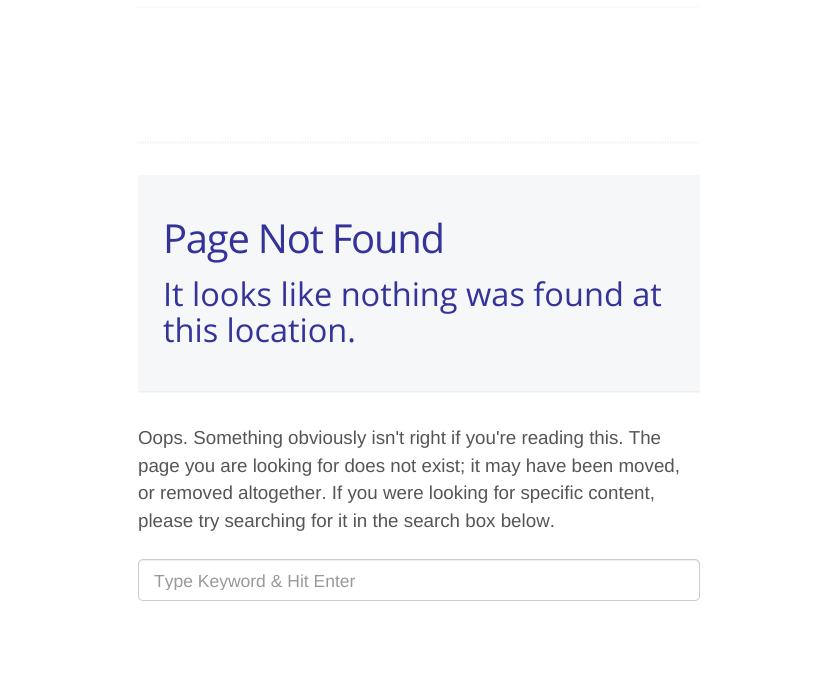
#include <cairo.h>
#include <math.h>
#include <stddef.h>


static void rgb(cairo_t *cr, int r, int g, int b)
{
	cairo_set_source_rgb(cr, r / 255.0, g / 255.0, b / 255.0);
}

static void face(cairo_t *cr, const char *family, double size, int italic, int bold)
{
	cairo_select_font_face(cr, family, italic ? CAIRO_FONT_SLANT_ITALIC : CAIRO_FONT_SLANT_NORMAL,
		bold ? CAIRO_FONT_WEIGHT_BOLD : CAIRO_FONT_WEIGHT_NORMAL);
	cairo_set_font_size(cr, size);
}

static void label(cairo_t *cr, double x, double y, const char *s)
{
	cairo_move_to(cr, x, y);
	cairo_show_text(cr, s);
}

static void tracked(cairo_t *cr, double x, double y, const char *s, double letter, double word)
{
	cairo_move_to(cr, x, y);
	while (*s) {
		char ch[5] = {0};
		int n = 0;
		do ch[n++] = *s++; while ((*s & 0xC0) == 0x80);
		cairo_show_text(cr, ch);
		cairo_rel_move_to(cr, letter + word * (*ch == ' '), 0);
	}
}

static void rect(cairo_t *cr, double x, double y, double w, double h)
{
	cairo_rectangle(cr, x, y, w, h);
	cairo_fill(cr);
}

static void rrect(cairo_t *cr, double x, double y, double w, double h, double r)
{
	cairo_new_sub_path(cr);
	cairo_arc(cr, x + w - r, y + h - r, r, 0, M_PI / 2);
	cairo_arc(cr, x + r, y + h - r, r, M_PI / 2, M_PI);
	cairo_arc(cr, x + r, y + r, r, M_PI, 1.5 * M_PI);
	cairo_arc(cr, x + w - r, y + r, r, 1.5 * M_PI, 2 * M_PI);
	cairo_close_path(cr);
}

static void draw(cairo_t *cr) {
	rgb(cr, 255, 255, 255);
	cairo_paint(cr);
	cairo_new_path(cr);
	cairo_move_to(cr, 137.5, 7);
	cairo_line_to(cr, 700, 7);
	rgb(cr, 239, 239, 239);
	cairo_set_line_width(cr, 1.2);
	cairo_set_dash(cr, (double[]){1.25, 1.25}, 2, 0);
	cairo_stroke(cr);
	cairo_new_path(cr);
	cairo_move_to(cr, 137.5, 142);
	cairo_line_to(cr, 700, 142);
	cairo_stroke(cr);
	cairo_new_path(cr);
	cairo_move_to(cr, 137.5, 143);
	cairo_line_to(cr, 700, 143);
	cairo_stroke(cr);
	rgb(cr, 245, 247, 249);
	rect(cr, 138, 175, 562, 218);
	rgb(cr, 239, 239, 239);
	rect(cr, 138, 391, 562, 1);
	face(cr, "Open Sans", 40, 0, 0);
	rgb(cr, 51, 51, 153);
	tracked(cr, 163, 253, "Page Not Found", -1.25, 0);
	face(cr, "Open Sans", 32.5, 0, 0);
	label(cr, 163, 306, "It looks like nothing was found at");
	label(cr, 163, 342, "this location.");
	face(cr, "Liberation Sans", 18.75, 0, 0);
	rgb(cr, 85, 85, 85);
	label(cr, 138, 444, "Oops. Something obviously isn't right if you're reading this. The");
	label(cr, 138, 472, "page you are looking for does not exist; it may have been moved,");
	label(cr, 138, 499, "or removed altogether. If you were looking for specific content,");
	label(cr, 138, 527, "please try searching for it in the search box below.");
	rgb(cr, 236, 236, 236);
	cairo_new_path(cr);
	cairo_move_to(cr, 142, 561);
	cairo_line_to(cr, 695, 561);
	cairo_curve_to(cr, 697, 561, 699, 563, 699, 565);
	cairo_curve_to(cr, 699, 562, 698, 560, 695, 560);
	cairo_line_to(cr, 143, 560);
	cairo_curve_to(cr, 140, 560, 139, 562, 139, 565);
	cairo_curve_to(cr, 139, 563, 140, 561, 142, 561);
	cairo_close_path(cr);
	cairo_fill(cr);
	rrect(cr, 138.5, 559.5, 561, 41, 4.5);
	rgb(cr, 204, 204, 204);
	cairo_set_line_width(cr, 1);
	cairo_set_dash(cr, NULL, 0, 0);
	cairo_stroke(cr);
	cairo_save(cr);
	cairo_rectangle(cr, 154, 570, 530, 20);
	cairo_clip(cr);
	face(cr, "Liberation Sans", 17.5, 0, 0);
	rgb(cr, 153, 153, 153);
	label(cr, 154, 587, "Type Keyword & Hit Enter");
	cairo_restore(cr);
}

int main(void) {
	cairo_surface_t *surface = cairo_image_surface_create(CAIRO_FORMAT_RGB24, 837, 673);
	cairo_t *cr = cairo_create(surface);
	cairo_font_options_t *options = cairo_font_options_create();
	cairo_font_options_set_hint_metrics(options, CAIRO_HINT_METRICS_OFF);
	cairo_font_options_set_hint_style(options, CAIRO_HINT_STYLE_NONE);
	cairo_set_font_options(cr, options);
	cairo_set_miter_limit(cr, 4);
	draw(cr);
	cairo_surface_write_to_png(surface, "render.png");
	cairo_font_options_destroy(options);
	cairo_destroy(cr);
	cairo_surface_destroy(surface);
	return 0;
}
